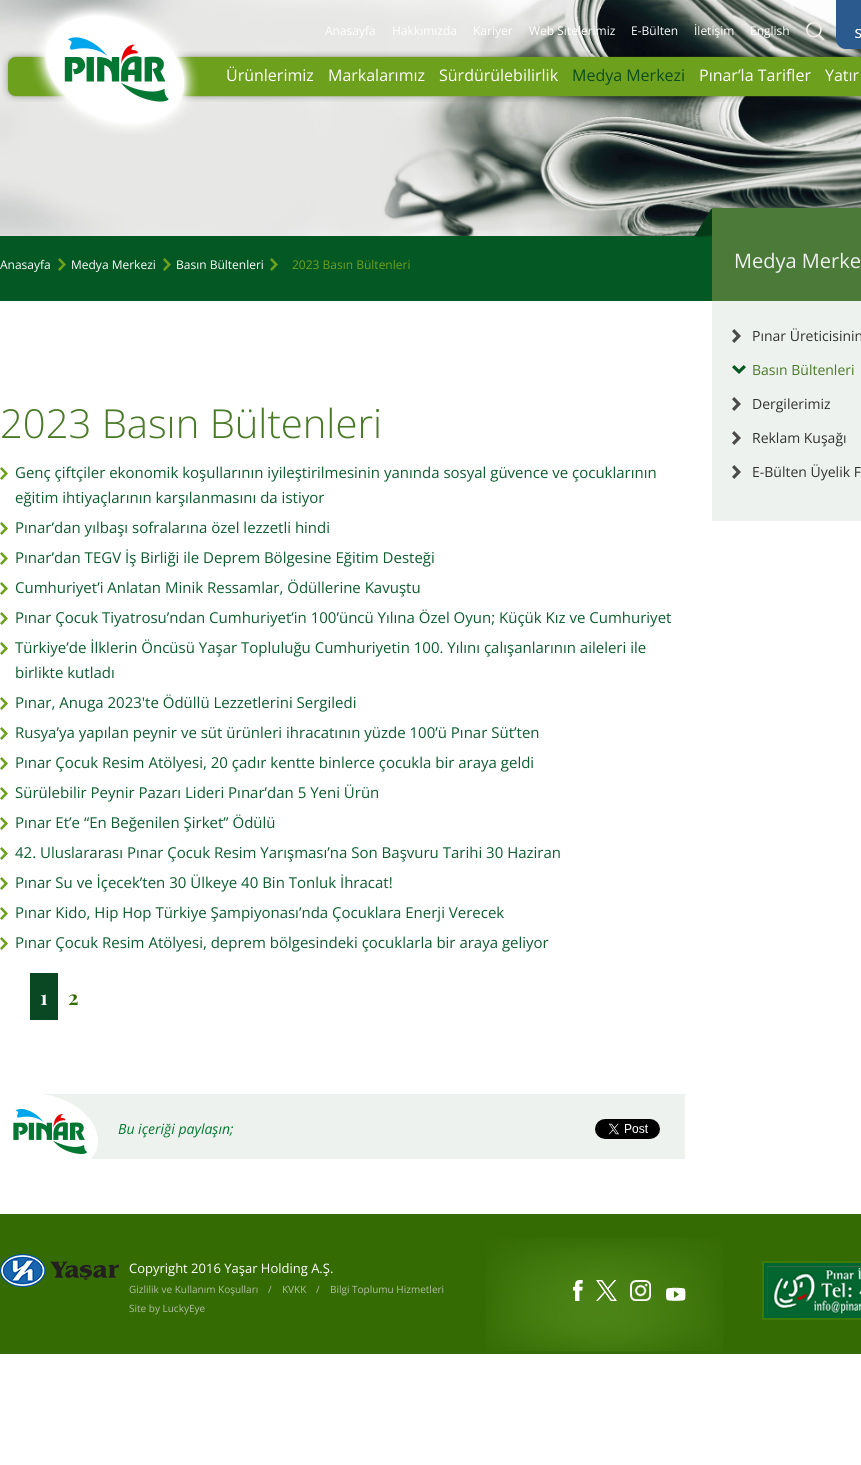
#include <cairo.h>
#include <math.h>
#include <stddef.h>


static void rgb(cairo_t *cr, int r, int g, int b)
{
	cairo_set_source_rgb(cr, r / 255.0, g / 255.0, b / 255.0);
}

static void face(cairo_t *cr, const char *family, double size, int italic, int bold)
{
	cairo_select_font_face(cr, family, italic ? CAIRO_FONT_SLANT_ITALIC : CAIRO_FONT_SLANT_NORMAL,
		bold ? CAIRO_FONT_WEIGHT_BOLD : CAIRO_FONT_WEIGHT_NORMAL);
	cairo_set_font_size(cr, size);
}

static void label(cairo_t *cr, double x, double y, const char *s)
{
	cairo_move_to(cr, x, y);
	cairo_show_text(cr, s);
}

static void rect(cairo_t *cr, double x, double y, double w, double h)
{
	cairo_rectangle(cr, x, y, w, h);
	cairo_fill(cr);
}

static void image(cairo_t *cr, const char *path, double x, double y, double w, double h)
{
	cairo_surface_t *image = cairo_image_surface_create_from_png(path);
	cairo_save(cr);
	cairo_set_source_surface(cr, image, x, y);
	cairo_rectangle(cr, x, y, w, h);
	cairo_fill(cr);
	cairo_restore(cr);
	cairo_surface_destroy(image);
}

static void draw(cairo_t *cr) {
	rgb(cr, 255, 255, 255);
	cairo_paint(cr);
	image(cr, "image0.png", 0, 0, 861, 236);
	face(cr, "Open Sans", 12, 0, 0);
	rgb(cr, 255, 255, 255);
	label(cr, 325, 35, "Anasayfa");
	label(cr, 392, 35, "Hakkımızda");
	label(cr, 473, 35, "Kariyer");
	label(cr, 529, 35, "Web Sitelerimiz");
	label(cr, 631, 35, "E-Bülten");
	label(cr, 694, 35, "İletişim");
	label(cr, 750, 35, "English");
	image(cr, "image1.png", 806, 22, 18, 18);
	image(cr, "image2.png", 836, 0, 25, 49);
	image(cr, "image4.png", 2, 51, 859, 51);
	image(cr, "image3.png", 31, 2, 168, 132);
	face(cr, "Open Sans", 16, 0, 0);
	label(cr, 226, 81, "Ürünlerimiz");
	label(cr, 328, 81, "Markalarımız");
	label(cr, 439, 81, "Sürdürülebilirlik");
	rgb(cr, 13, 77, 25);
	label(cr, 572, 81, "Medya Merkezi");
	rgb(cr, 255, 255, 255);
	label(cr, 699, 81, "Pınar’la Tarifler");
	label(cr, 825, 81, "Yatır");
	rgb(cr, 4, 88, 36);
	rect(cr, 0, 236, 712, 65);
	image(cr, "image5.png", 694, 208, 167, 93);
	face(cr, "Open Sans", 20, 0, 0);
	rgb(cr, 238, 242, 238);
	label(cr, 734, 268, "Medya Merke");
	rect(cr, 712, 301, 149, 220);
	image(cr, "image6.png", 732, 329, 9, 14);
	face(cr, "Open Sans", 14, 0, 0);
	rgb(cr, 49, 49, 49);
	label(cr, 752, 341, "Pınar Üreticisinin");
	image(cr, "image7.png", 732, 365, 14, 9);
	rgb(cr, 74, 121, 39);
	label(cr, 752, 375, "Basın Bültenleri");
	image(cr, "image6.png", 732, 397, 9, 14);
	rgb(cr, 49, 49, 49);
	label(cr, 752, 409, "Dergilerimiz");
	image(cr, "image6.png", 732, 431, 9, 14);
	label(cr, 752, 443, "Reklam Kuşağı");
	image(cr, "image6.png", 732, 465, 9, 14);
	label(cr, 752, 477, "E-Bülten Üyelik F");
	face(cr, "Open Sans Light", 40, 0, 0);
	rgb(cr, 74, 121, 39);
	label(cr, 0, 438, "2023 Basın Bültenleri");
	image(cr, "image8.png", 0, 467, 8, 13);
	face(cr, "Open Sans", 15, 0, 0);
	rgb(cr, 13, 93, 47);
	label(cr, 15, 478, "Genç çiftçiler ekonomik koşullarının iyileştirilmesinin yanında sosyal güvence ve çocuklarının");
	label(cr, 15, 503, "eğitim ihtiyaçlarının karşılanmasını da istiyor");
	image(cr, "image8.png", 0, 522, 8, 13);
	label(cr, 15, 533, "Pınar’dan yılbaşı sofralarına özel lezzetli hindi");
	image(cr, "image8.png", 0, 552, 8, 13);
	label(cr, 15, 563, "Pınar’dan TEGV İş Birliği ile Deprem Bölgesine Eğitim Desteği");
	image(cr, "image8.png", 0, 582, 8, 13);
	label(cr, 15, 593, "Cumhuriyet’i Anlatan Minik Ressamlar, Ödüllerine Kavuştu");
	image(cr, "image8.png", 0, 612, 8, 13);
	label(cr, 15, 623, "Pınar Çocuk Tiyatrosu’ndan Cumhuriyet’in 100’üncü Yılına Özel Oyun; Küçük Kız ve Cumhuriyet");
	image(cr, "image8.png", 0, 642, 8, 13);
	label(cr, 15, 653, "Türkiye’de İlklerin Öncüsü Yaşar Topluluğu Cumhuriyetin 100. Yılını çalışanlarının aileleri ile");
	label(cr, 15, 678, "birlikte kutladı");
	image(cr, "image8.png", 0, 697, 8, 13);
	label(cr, 15, 708, "Pınar, Anuga 2023'te Ödüllü Lezzetlerini Sergiledi");
	image(cr, "image8.png", 0, 727, 8, 13);
	label(cr, 15, 738, "Rusya’ya yapılan peynir ve süt ürünleri ihracatının yüzde 100’ü Pınar Süt’ten");
	image(cr, "image8.png", 0, 757, 8, 13);
	label(cr, 15, 768, "Pınar Çocuk Resim Atölyesi, 20 çadır kentte binlerce çocukla bir araya geldi");
	image(cr, "image8.png", 0, 787, 8, 13);
	label(cr, 15, 798, "Sürülebilir Peynir Pazarı Lideri Pınar’dan 5 Yeni Ürün");
	image(cr, "image8.png", 0, 817, 8, 13);
	label(cr, 15, 828, "Pınar Et’e “En Beğenilen Şirket” Ödülü");
	image(cr, "image8.png", 0, 847, 8, 13);
	label(cr, 15, 858, "42. Uluslararası Pınar Çocuk Resim Yarışması’na Son Başvuru Tarihi 30 Haziran");
	image(cr, "image8.png", 0, 877, 8, 13);
	label(cr, 15, 888, "Pınar Su ve İçecek’ten 30 Ülkeye 40 Bin Tonluk İhracat!");
	image(cr, "image8.png", 0, 907, 8, 13);
	label(cr, 15, 918, "Pınar Kido, Hip Hop Türkiye Şampiyonası’nda Çocuklara Enerji Verecek");
	image(cr, "image8.png", 0, 937, 8, 13);
	label(cr, 15, 948, "Pınar Çocuk Resim Atölyesi, deprem bölgesindeki çocuklarla bir araya geliyor");
	rgb(cr, 10, 72, 36);
	rect(cr, 30, 973, 28, 47);
	face(cr, "Playfair Display", 20, 0, 1);
	rgb(cr, 255, 255, 255);
	label(cr, 40, 1005, "1");
	rgb(cr, 53, 107, 3);
	label(cr, 68, 1005, "2");
	rgb(cr, 238, 242, 238);
	rect(cr, 42, 1094, 643, 65);
	image(cr, "image9.png", 0, 1094, 98, 65);
	face(cr, "Open Sans", 14, 1, 0);
	rgb(cr, 4, 120, 50);
	label(cr, 118, 1134, "Bu içeriği paylaşın;");
	image(cr, "image10.png", 595, 1119, 65, 20);
	image(cr, "image11.png", 58, 258, 8, 13);
	face(cr, "Open Sans", 12, 0, 0);
	rgb(cr, 255, 255, 255);
	label(cr, 0, 269, "Anasayfa");
	image(cr, "image11.png", 163, 258, 8, 13);
	label(cr, 71, 269, "Medya Merkezi");
	image(cr, "image11.png", 270, 258, 8, 13);
	label(cr, 176, 269, "Basın Bültenleri");
	rgb(cr, 109, 160, 29);
	label(cr, 292, 269, "2023 Basın Bültenleri");
	rgb(cr, 53, 107, 3);
	rect(cr, 0, 1214, 861, 140);
	image(cr, "image12.png", 0, 1254, 119, 33);
	face(cr, "Open Sans", 13, 0, 0);
	rgb(cr, 255, 255, 255);
	label(cr, 129, 1273, "Copyright 2016 Yaşar Holding A.Ş.");
	face(cr, "Open Sans", 10, 0, 0);
	rgb(cr, 176, 190, 164);
	label(cr, 129, 1293, "Gizlilik ve Kullanım Koşulları");
	label(cr, 268, 1293, "/");
	label(cr, 282, 1293, "KVKK");
	label(cr, 316, 1293, "/");
	label(cr, 330, 1293, "Bilgi Toplumu Hizmetleri");
	label(cr, 129, 1312, "Site by LuckyEye");
	image(cr, "image13.png", 486, 1238, 237, 114);
	image(cr, "image14.png", 573, 1280, 10, 21);
	image(cr, "image15.png", 596, 1280, 21, 21);
	image(cr, "image16.png", 630, 1280, 21, 21);
	image(cr, "image17.png", 666, 1287, 20, 14);
	image(cr, "image18.png", 762, 1261, 99, 59);
}

int main(void) {
	cairo_surface_t *surface = cairo_image_surface_create(CAIRO_FORMAT_RGB24, 861, 1465);
	cairo_t *cr = cairo_create(surface);
	cairo_font_options_t *options = cairo_font_options_create();
	cairo_font_options_set_hint_metrics(options, CAIRO_HINT_METRICS_OFF);
	cairo_font_options_set_hint_style(options, CAIRO_HINT_STYLE_NONE);
	cairo_set_font_options(cr, options);
	cairo_set_miter_limit(cr, 4);
	draw(cr);
	cairo_surface_write_to_png(surface, "render.png");
	cairo_font_options_destroy(options);
	cairo_destroy(cr);
	cairo_surface_destroy(surface);
	return 0;
}
